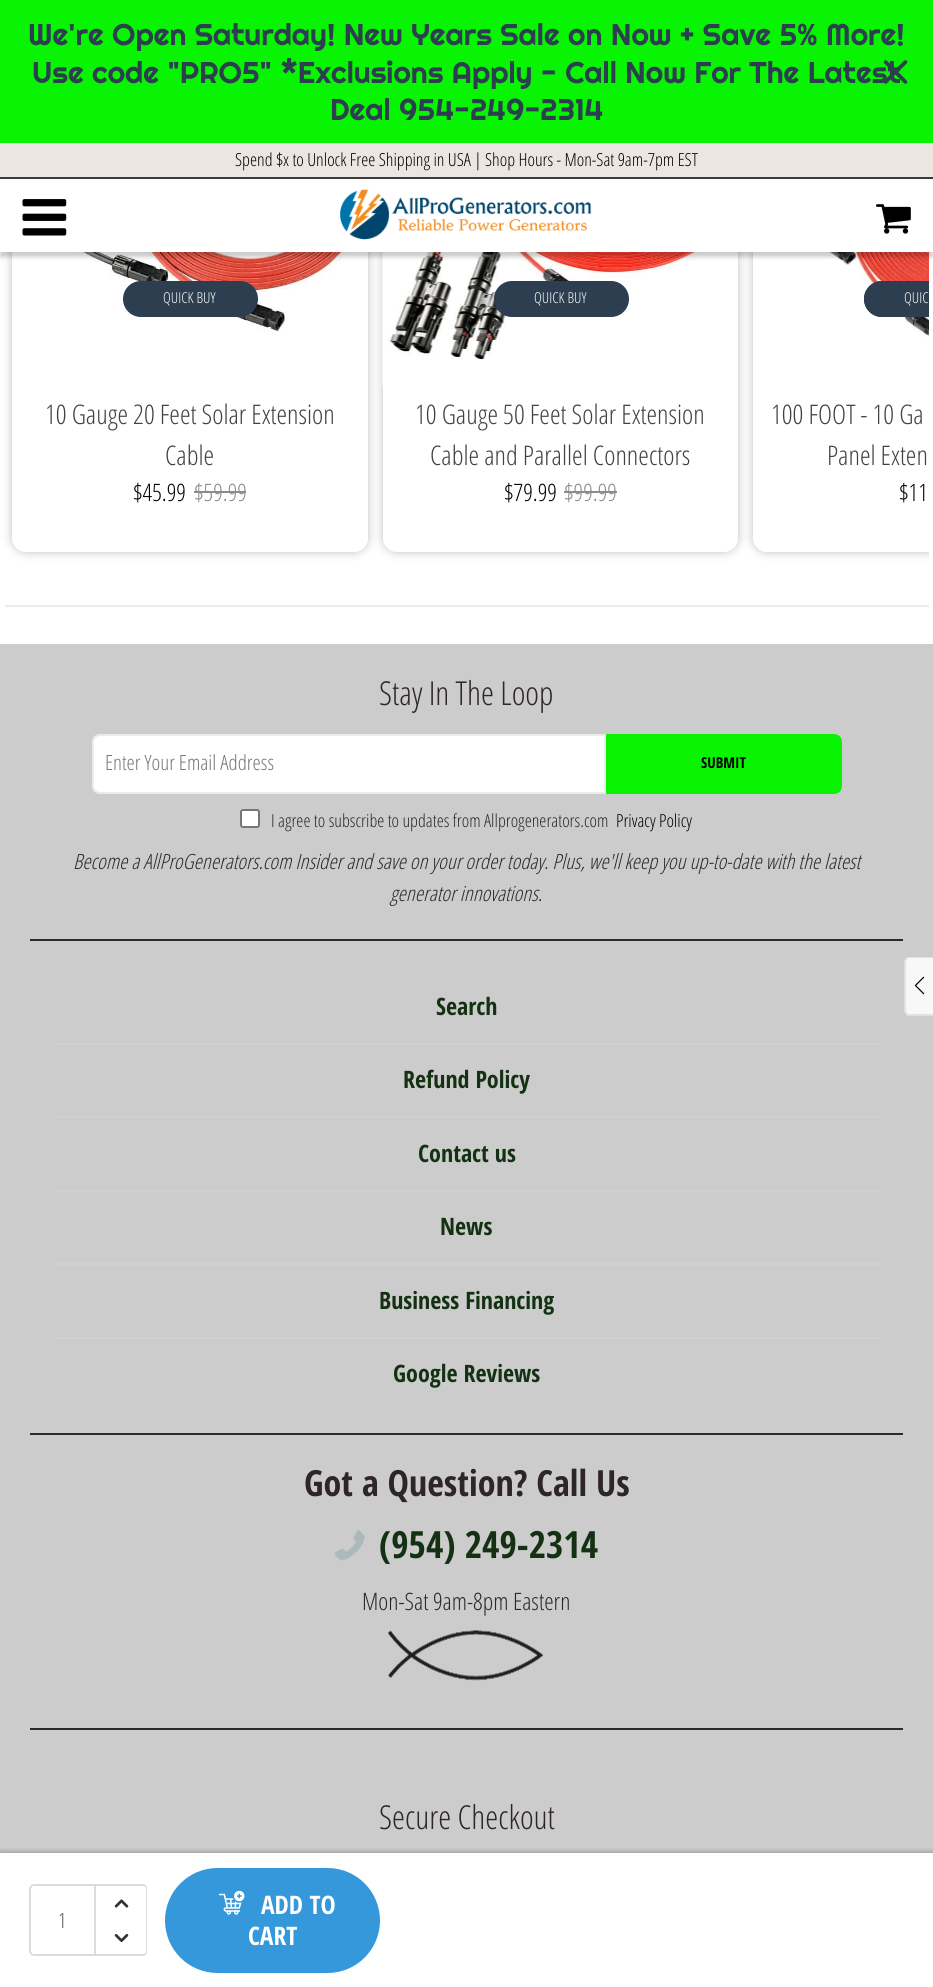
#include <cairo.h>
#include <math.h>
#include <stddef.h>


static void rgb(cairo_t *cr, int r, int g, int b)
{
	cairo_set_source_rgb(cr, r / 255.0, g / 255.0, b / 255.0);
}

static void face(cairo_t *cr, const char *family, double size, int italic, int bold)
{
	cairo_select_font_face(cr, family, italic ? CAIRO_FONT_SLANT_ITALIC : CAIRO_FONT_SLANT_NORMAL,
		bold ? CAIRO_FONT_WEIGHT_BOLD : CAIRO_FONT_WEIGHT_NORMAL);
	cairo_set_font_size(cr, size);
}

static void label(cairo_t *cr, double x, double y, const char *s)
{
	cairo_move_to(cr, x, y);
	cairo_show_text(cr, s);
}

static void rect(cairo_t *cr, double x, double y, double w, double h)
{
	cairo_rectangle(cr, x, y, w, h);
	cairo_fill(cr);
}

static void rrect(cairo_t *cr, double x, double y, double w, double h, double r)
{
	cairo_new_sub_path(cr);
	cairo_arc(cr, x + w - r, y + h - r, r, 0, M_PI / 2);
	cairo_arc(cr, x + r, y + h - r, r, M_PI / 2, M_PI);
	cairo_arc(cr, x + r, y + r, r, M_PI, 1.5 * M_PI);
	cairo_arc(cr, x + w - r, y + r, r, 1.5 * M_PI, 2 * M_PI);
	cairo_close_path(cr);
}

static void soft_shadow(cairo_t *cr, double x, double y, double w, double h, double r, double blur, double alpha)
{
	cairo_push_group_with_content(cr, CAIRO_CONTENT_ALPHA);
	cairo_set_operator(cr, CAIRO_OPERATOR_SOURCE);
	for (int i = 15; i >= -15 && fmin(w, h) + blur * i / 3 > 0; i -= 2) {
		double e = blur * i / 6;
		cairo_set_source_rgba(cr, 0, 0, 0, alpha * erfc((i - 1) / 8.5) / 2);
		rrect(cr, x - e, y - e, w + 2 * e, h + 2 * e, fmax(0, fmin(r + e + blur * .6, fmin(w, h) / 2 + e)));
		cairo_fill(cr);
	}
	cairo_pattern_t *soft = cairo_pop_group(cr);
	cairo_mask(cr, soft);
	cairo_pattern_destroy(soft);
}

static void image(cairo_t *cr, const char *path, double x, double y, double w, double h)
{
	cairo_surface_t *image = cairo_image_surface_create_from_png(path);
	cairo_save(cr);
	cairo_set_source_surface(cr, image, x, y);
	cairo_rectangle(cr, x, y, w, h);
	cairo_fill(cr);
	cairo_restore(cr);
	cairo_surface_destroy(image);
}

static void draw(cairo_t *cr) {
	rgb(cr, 255, 255, 255);
	cairo_paint(cr);
	cairo_save(cr);
	cairo_set_fill_rule(cr, CAIRO_FILL_RULE_EVEN_ODD);
	cairo_new_path(cr);
	cairo_move_to(cr, 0, 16);
	cairo_line_to(cr, 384, 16);
	cairo_line_to(cr, 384, 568);
	cairo_line_to(cr, 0, 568);
	cairo_close_path(cr);
	cairo_move_to(cr, 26, 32);
	cairo_line_to(cr, 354, 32);
	cairo_curve_to(cr, 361.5, 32, 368, 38.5, 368, 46);
	cairo_line_to(cr, 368, 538);
	cairo_curve_to(cr, 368, 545.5, 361.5, 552, 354, 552);
	cairo_line_to(cr, 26, 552);
	cairo_curve_to(cr, 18.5, 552, 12, 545.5, 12, 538);
	cairo_line_to(cr, 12, 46);
	cairo_curve_to(cr, 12, 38.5, 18.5, 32, 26, 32);
	cairo_close_path(cr);
	cairo_clip(cr);
	rgb(cr, 0, 0, 0);
	soft_shadow(cr, 12, 32, 356, 520, 14, 5, 0.25);
	cairo_restore(cr);
	cairo_save(cr);
	cairo_set_fill_rule(cr, CAIRO_FILL_RULE_EVEN_ODD);
	cairo_new_path(cr);
	cairo_move_to(cr, 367, 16);
	cairo_line_to(cr, 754, 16);
	cairo_line_to(cr, 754, 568);
	cairo_line_to(cr, 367, 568);
	cairo_close_path(cr);
	cairo_move_to(cr, 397, 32);
	cairo_line_to(cr, 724, 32);
	cairo_curve_to(cr, 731.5, 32, 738, 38.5, 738, 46);
	cairo_line_to(cr, 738, 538);
	cairo_curve_to(cr, 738, 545.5, 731.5, 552, 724, 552);
	cairo_line_to(cr, 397, 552);
	cairo_curve_to(cr, 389.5, 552, 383, 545.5, 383, 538);
	cairo_line_to(cr, 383, 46);
	cairo_curve_to(cr, 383, 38.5, 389.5, 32, 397, 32);
	cairo_close_path(cr);
	cairo_clip(cr);
	rgb(cr, 0, 0, 0);
	soft_shadow(cr, 383, 32, 355, 520, 14, 5, 0.25);
	cairo_restore(cr);
	image(cr, "image4.png", 12, 252, 356, 135);
	cairo_save(cr);
	cairo_rectangle(cr, 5, 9, 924, 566);
	cairo_clip(cr);
	cairo_set_fill_rule(cr, CAIRO_FILL_RULE_EVEN_ODD);
	cairo_new_path(cr);
	cairo_move_to(cr, 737, 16);
	cairo_line_to(cr, 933, 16);
	cairo_line_to(cr, 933, 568);
	cairo_line_to(cr, 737, 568);
	cairo_close_path(cr);
	cairo_move_to(cr, 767, 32);
	cairo_line_to(cr, 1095, 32);
	cairo_curve_to(cr, 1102.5, 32, 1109, 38.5, 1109, 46);
	cairo_line_to(cr, 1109, 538);
	cairo_curve_to(cr, 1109, 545.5, 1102.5, 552, 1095, 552);
	cairo_line_to(cr, 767, 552);
	cairo_curve_to(cr, 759.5, 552, 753, 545.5, 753, 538);
	cairo_line_to(cr, 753, 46);
	cairo_curve_to(cr, 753, 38.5, 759.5, 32, 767, 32);
	cairo_close_path(cr);
	cairo_clip(cr);
	rgb(cr, 0, 0, 0);
	soft_shadow(cr, 753, 32, 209, 520, 14, 5, 0.25);
	cairo_restore(cr);
	image(cr, "image5.png", 382, 252, 356, 135);
	image(cr, "image6.png", 753, 252, 176, 85);
	rgb(cr, 0, 0, 0);
	soft_shadow(cr, 0, 5, 933, 252, 0, 2, 0.2);
	rgb(cr, 255, 255, 255);
	rect(cr, 0, 179, 933, 73);
	rgb(cr, 8, 244, 3);
	rect(cr, 0, 0, 933, 143);
	face(cr, "Righteous", 30, 0, 0);
	rgb(cr, 44, 62, 80);
	label(cr, 28, 45, "We're Open Saturday! New Years Sale on Now + Save 5% More!");
	label(cr, 32, 83, "Use code \"PRO5\" *Exclusions Apply - Call Now For The Latest");
	label(cr, 330, 120, "Deal 954-249-2314");
	image(cr, "image0.png", 883, 60, 25, 24);
	rgb(cr, 236, 230, 225);
	rect(cr, 0, 143, 933, 34);
	rgb(cr, 59, 59, 59);
	rect(cr, 0, 177, 933, 2);
	face(cr, "Open Sans Condensed Light", 18, 0, 0);
	rgb(cr, 0, 0, 0);
	label(cr, 235, 166, "Spend $x to Unlock Free Shipping in USA | Shop Hours - Mon-Sat 9am-7pm EST");
	image(cr, "image1.png", 22, 199, 45, 37);
	image(cr, "image2.png", 340, 189, 252, 51);
	image(cr, "image3.png", 876, 204, 35, 30);
	rgb(cr, 235, 235, 235);
	rect(cr, 5, 605, 924, 2);
	rgb(cr, 44, 62, 80);
	rrect(cr, 124, 282, 133, 34, 17);
	cairo_fill_preserve(cr);
	cairo_stroke(cr);
	face(cr, "Open Sans Condensed Light", 15, 0, 0);
	rgb(cr, 255, 255, 255);
	label(cr, 163, 303, "QUICK BUY");
	face(cr, "Open Sans Condensed Light", 27, 0, 0);
	rgb(cr, 65, 65, 65);
	label(cr, 45, 424, "10 Gauge 20 Feet Solar Extension");
	label(cr, 165, 465, "Cable");
	face(cr, "Open Sans Condensed Light", 24, 0, 0);
	rgb(cr, 0, 0, 0);
	label(cr, 133, 501, "$45.99");
	rgb(cr, 139, 139, 139);
	label(cr, 194, 501, "$59.99");
	rect(cr, 194, 491, 52, 2);
	rgb(cr, 44, 62, 80);
	rrect(cr, 495, 282, 133, 34, 17);
	cairo_fill_preserve(cr);
	cairo_stroke(cr);
	face(cr, "Open Sans Condensed Light", 15, 0, 0);
	rgb(cr, 255, 255, 255);
	label(cr, 534, 303, "QUICK BUY");
	face(cr, "Open Sans Condensed Light", 27, 0, 0);
	rgb(cr, 65, 65, 65);
	label(cr, 415, 424, "10 Gauge 50 Feet Solar Extension");
	label(cr, 430, 465, "Cable and Parallel Connectors");
	face(cr, "Open Sans Condensed Light", 24, 0, 0);
	rgb(cr, 0, 0, 0);
	label(cr, 504, 501, "$79.99");
	rgb(cr, 139, 139, 139);
	label(cr, 564, 501, "$99.99");
	rect(cr, 564, 491, 53, 2);
	rgb(cr, 44, 62, 80);
	cairo_new_path(cr);
	cairo_move_to(cr, 882, 281);
	cairo_line_to(cr, 929, 281);
	cairo_line_to(cr, 929, 317);
	cairo_line_to(cr, 882, 317);
	cairo_curve_to(cr, 872, 317, 864, 309, 864, 299);
	cairo_curve_to(cr, 864, 289, 872, 281, 882, 281);
	cairo_close_path(cr);
	cairo_fill(cr);
	cairo_save(cr);
	cairo_rectangle(cr, 753, 32, 176, 355);
	cairo_clip(cr);
	rrect(cr, 865, 282, 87, 34, 17);
	cairo_stroke(cr);
	cairo_restore(cr);
	face(cr, "Open Sans Condensed Light", 15, 0, 0);
	rgb(cr, 255, 255, 255);
	label(cr, 904, 303, "QUIC");
	face(cr, "Open Sans Condensed Light", 27, 0, 0);
	rgb(cr, 65, 65, 65);
	label(cr, 771, 424, "100 FOOT - 10 Ga");
	label(cr, 827, 465, "Panel Exten");
	face(cr, "Open Sans Condensed Light", 24, 0, 0);
	rgb(cr, 0, 0, 0);
	label(cr, 899, 501, "$11");
	rgb(cr, 204, 204, 204);
	rect(cr, 0, 644, 933, 1209);
	rgb(cr, 248, 248, 248);
	cairo_new_path(cr);
	cairo_move_to(cr, 910, 957);
	cairo_line_to(cr, 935, 957);
	cairo_line_to(cr, 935, 1016);
	cairo_line_to(cr, 910, 1016);
	cairo_curve_to(cr, 907, 1016, 905, 1014, 905, 1011);
	cairo_line_to(cr, 905, 962);
	cairo_curve_to(cr, 905, 959, 907, 957, 910, 957);
	cairo_close_path(cr);
	cairo_fill(cr);
	rgb(cr, 225, 225, 225);
	cairo_set_fill_rule(cr, CAIRO_FILL_RULE_EVEN_ODD);
	cairo_new_path(cr);
	cairo_move_to(cr, 909, 957);
	cairo_line_to(cr, 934, 957);
	cairo_line_to(cr, 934, 1016);
	cairo_line_to(cr, 909, 1016);
	cairo_curve_to(cr, 907, 1016, 904, 1013, 904, 1011);
	cairo_line_to(cr, 904, 962);
	cairo_curve_to(cr, 904, 959, 907, 957, 909, 957);
	cairo_close_path(cr);
	cairo_move_to(cr, 909, 958);
	cairo_line_to(cr, 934, 958);
	cairo_line_to(cr, 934, 1014);
	cairo_line_to(cr, 909, 1014);
	cairo_curve_to(cr, 907, 1014, 906, 1013, 906, 1011);
	cairo_line_to(cr, 906, 962);
	cairo_curve_to(cr, 906, 960, 907, 958, 909, 958);
	cairo_close_path(cr);
	cairo_fill(cr);
	image(cr, "image7.png", 914, 976, 11, 19);
	rgb(cr, 0, 0, 0);
	soft_shadow(cr, 0, 1851, 933, 135, 0, 2, 0.2);
	rgb(cr, 255, 255, 255);
	rect(cr, 0, 1853, 933, 134);
	cairo_new_path(cr);
	cairo_move_to(cr, 34, 1885);
	cairo_line_to(cr, 95, 1885);
	cairo_line_to(cr, 95, 1955);
	cairo_line_to(cr, 34, 1955);
	cairo_curve_to(cr, 32, 1955, 30, 1953, 30, 1951);
	cairo_line_to(cr, 30, 1889);
	cairo_curve_to(cr, 30, 1887, 32, 1885, 34, 1885);
	cairo_close_path(cr);
	rgb(cr, 221, 220, 220);
	cairo_stroke(cr);
	face(cr, "Open Sans Condensed Light", 21, 0, 0);
	rgb(cr, 85, 85, 85);
	label(cr, 58, 1928, "1");
	rgb(cr, 255, 255, 255);
	cairo_new_path(cr);
	cairo_move_to(cr, 95, 1884);
	cairo_line_to(cr, 142, 1884);
	cairo_curve_to(cr, 145, 1884, 147, 1886, 147, 1889);
	cairo_line_to(cr, 147, 1920);
	cairo_line_to(cr, 95, 1920);
	cairo_close_path(cr);
	cairo_fill(cr);
	rgb(cr, 221, 220, 220);
	cairo_new_path(cr);
	cairo_move_to(cr, 94, 1884);
	cairo_line_to(cr, 142, 1884);
	cairo_curve_to(cr, 145, 1884, 147, 1886, 147, 1888);
	cairo_line_to(cr, 147, 1920);
	cairo_line_to(cr, 94, 1920);
	cairo_close_path(cr);
	cairo_move_to(cr, 96, 1886);
	cairo_line_to(cr, 142, 1886);
	cairo_curve_to(cr, 144, 1886, 146, 1887, 146, 1888);
	cairo_line_to(cr, 146, 1920);
	cairo_line_to(cr, 96, 1920);
	cairo_close_path(cr);
	cairo_fill(cr);
	image(cr, "image8.png", 114, 1899, 15, 9);
	rgb(cr, 255, 255, 255);
	cairo_new_path(cr);
	cairo_move_to(cr, 95, 1920);
	cairo_line_to(cr, 147, 1920);
	cairo_line_to(cr, 147, 1951);
	cairo_curve_to(cr, 147, 1954, 145, 1956, 142, 1956);
	cairo_line_to(cr, 95, 1956);
	cairo_close_path(cr);
	cairo_fill(cr);
	rgb(cr, 221, 220, 220);
	cairo_new_path(cr);
	cairo_move_to(cr, 94, 1920);
	cairo_line_to(cr, 147, 1920);
	cairo_line_to(cr, 147, 1952);
	cairo_curve_to(cr, 147, 1954, 145, 1956, 142, 1956);
	cairo_line_to(cr, 94, 1956);
	cairo_close_path(cr);
	cairo_move_to(cr, 96, 1920);
	cairo_line_to(cr, 146, 1920);
	cairo_line_to(cr, 146, 1952);
	cairo_curve_to(cr, 146, 1953, 144, 1954, 142, 1954);
	cairo_line_to(cr, 96, 1954);
	cairo_close_path(cr);
	cairo_fill(cr);
	image(cr, "image9.png", 114, 1934, 15, 8);
	rgb(cr, 52, 152, 219);
	rrect(cr, 165, 1868, 215, 105, 52.5);
	cairo_fill(cr);
	image(cr, "image10.png", 219, 1890, 26, 25);
	face(cr, "Open Sans Condensed", 25.5, 0, 1);
	rgb(cr, 255, 255, 255);
	label(cr, 261, 1914, "ADD TO");
	label(cr, 248, 1945, "CART");
	rgb(cr, 43, 43, 43);
	rect(cr, 30, 939, 873, 2);
	face(cr, "Open Sans Condensed Light", 33, 0, 0);
	rgb(cr, 46, 38, 38);
	label(cr, 379, 705, "Stay In The Loop");
	rgb(cr, 255, 255, 255);
	cairo_new_path(cr);
	cairo_move_to(cr, 100, 735);
	cairo_line_to(cr, 605, 735);
	cairo_line_to(cr, 605, 793);
	cairo_line_to(cr, 100, 793);
	cairo_curve_to(cr, 96, 793, 93, 790, 93, 786);
	cairo_line_to(cr, 93, 742);
	cairo_curve_to(cr, 93, 738, 96, 735, 100, 735);
	cairo_close_path(cr);
	cairo_fill_preserve(cr);
	rgb(cr, 235, 235, 235);
	cairo_stroke(cr);
	face(cr, "Open Sans Condensed Light", 21, 0, 0);
	rgb(cr, 117, 117, 117);
	label(cr, 105, 770, "Enter Your Email Address");
	rgb(cr, 8, 244, 3);
	cairo_new_path(cr);
	cairo_move_to(cr, 606, 734);
	cairo_line_to(cr, 834, 734);
	cairo_curve_to(cr, 838.5, 734, 842, 737.5, 842, 742);
	cairo_line_to(cr, 842, 786);
	cairo_curve_to(cr, 842, 790.5, 838.5, 794, 834, 794);
	cairo_line_to(cr, 606, 794);
	cairo_close_path(cr);
	cairo_fill(cr);
	face(cr, "Open Sans Condensed", 15, 0, 1);
	rgb(cr, 0, 0, 0);
	label(cr, 701, 768, "SUBMIT");
	rgb(cr, 255, 255, 255);
	rrect(cr, 241, 810, 18, 17, 2);
	cairo_fill_preserve(cr);
	rgb(cr, 118, 118, 118);
	cairo_stroke(cr);
	face(cr, "Open Sans Condensed Light", 18, 0, 0);
	rgb(cr, 46, 38, 38);
	label(cr, 271, 827, "I agree to subscribe to updates from Allprogenerators.com");
	rgb(cr, 0, 0, 0);
	label(cr, 616, 827, "Privacy Policy");
	face(cr, "Open Sans Condensed Light", 21, 1, 0);
	rgb(cr, 46, 38, 38);
	label(cr, 73, 869, "Become a AllProGenerators.com Insider and save on your order today. Plus, we'll keep you up-to-date with the latest");
	label(cr, 390, 901, "generator innovations.");
	rgb(cr, 43, 43, 43);
	rect(cr, 30, 1433, 873, 2);
	rgb(cr, 208, 208, 208);
	rect(cr, 53, 1043, 828, 2);
	face(cr, "Open Sans Condensed", 24, 0, 1);
	rgb(cr, 20, 50, 19);
	label(cr, 436, 1015, "Search");
	rgb(cr, 208, 208, 208);
	rect(cr, 53, 1116, 828, 2);
	rgb(cr, 20, 50, 19);
	label(cr, 403, 1088, "Refund Policy");
	rgb(cr, 208, 208, 208);
	rect(cr, 53, 1190, 828, 2);
	rgb(cr, 20, 50, 19);
	label(cr, 418, 1162, "Contact us");
	rgb(cr, 208, 208, 208);
	rect(cr, 53, 1263, 828, 2);
	rgb(cr, 20, 50, 19);
	label(cr, 440, 1235, "News");
	rgb(cr, 208, 208, 208);
	rect(cr, 53, 1337, 828, 2);
	rgb(cr, 20, 50, 19);
	label(cr, 379, 1309, "Business Financing");
	label(cr, 393, 1382, "Google Reviews");
	rgb(cr, 43, 43, 43);
	rect(cr, 30, 1728, 873, 2);
	face(cr, "Open Sans Condensed", 36, 0, 1);
	rgb(cr, 46, 38, 38);
	label(cr, 304, 1496, "Got a Question? Call Us");
	image(cr, "image11.png", 334, 1529, 31, 32);
	face(cr, "Open Sans Condensed", 37.5, 0, 1);
	rgb(cr, 20, 50, 19);
	label(cr, 379, 1558, "(954) 249-2314");
	face(cr, "Open Sans Condensed Light", 24, 0, 0);
	rgb(cr, 46, 38, 38);
	label(cr, 362, 1610, "Mon-Sat 9am-8pm Eastern");
	image(cr, "image12.png", 388, 1630, 156, 51);
	face(cr, "Open Sans Condensed Light", 33, 0, 0);
	label(cr, 379, 1829, "Secure Checkout");
}

int main(void) {
	cairo_surface_t *surface = cairo_image_surface_create(CAIRO_FORMAT_RGB24, 933, 1987);
	cairo_t *cr = cairo_create(surface);
	cairo_font_options_t *options = cairo_font_options_create();
	cairo_font_options_set_hint_metrics(options, CAIRO_HINT_METRICS_OFF);
	cairo_font_options_set_hint_style(options, CAIRO_HINT_STYLE_NONE);
	cairo_set_font_options(cr, options);
	cairo_set_miter_limit(cr, 4);
	draw(cr);
	cairo_surface_write_to_png(surface, "render.png");
	cairo_font_options_destroy(options);
	cairo_destroy(cr);
	cairo_surface_destroy(surface);
	return 0;
}
